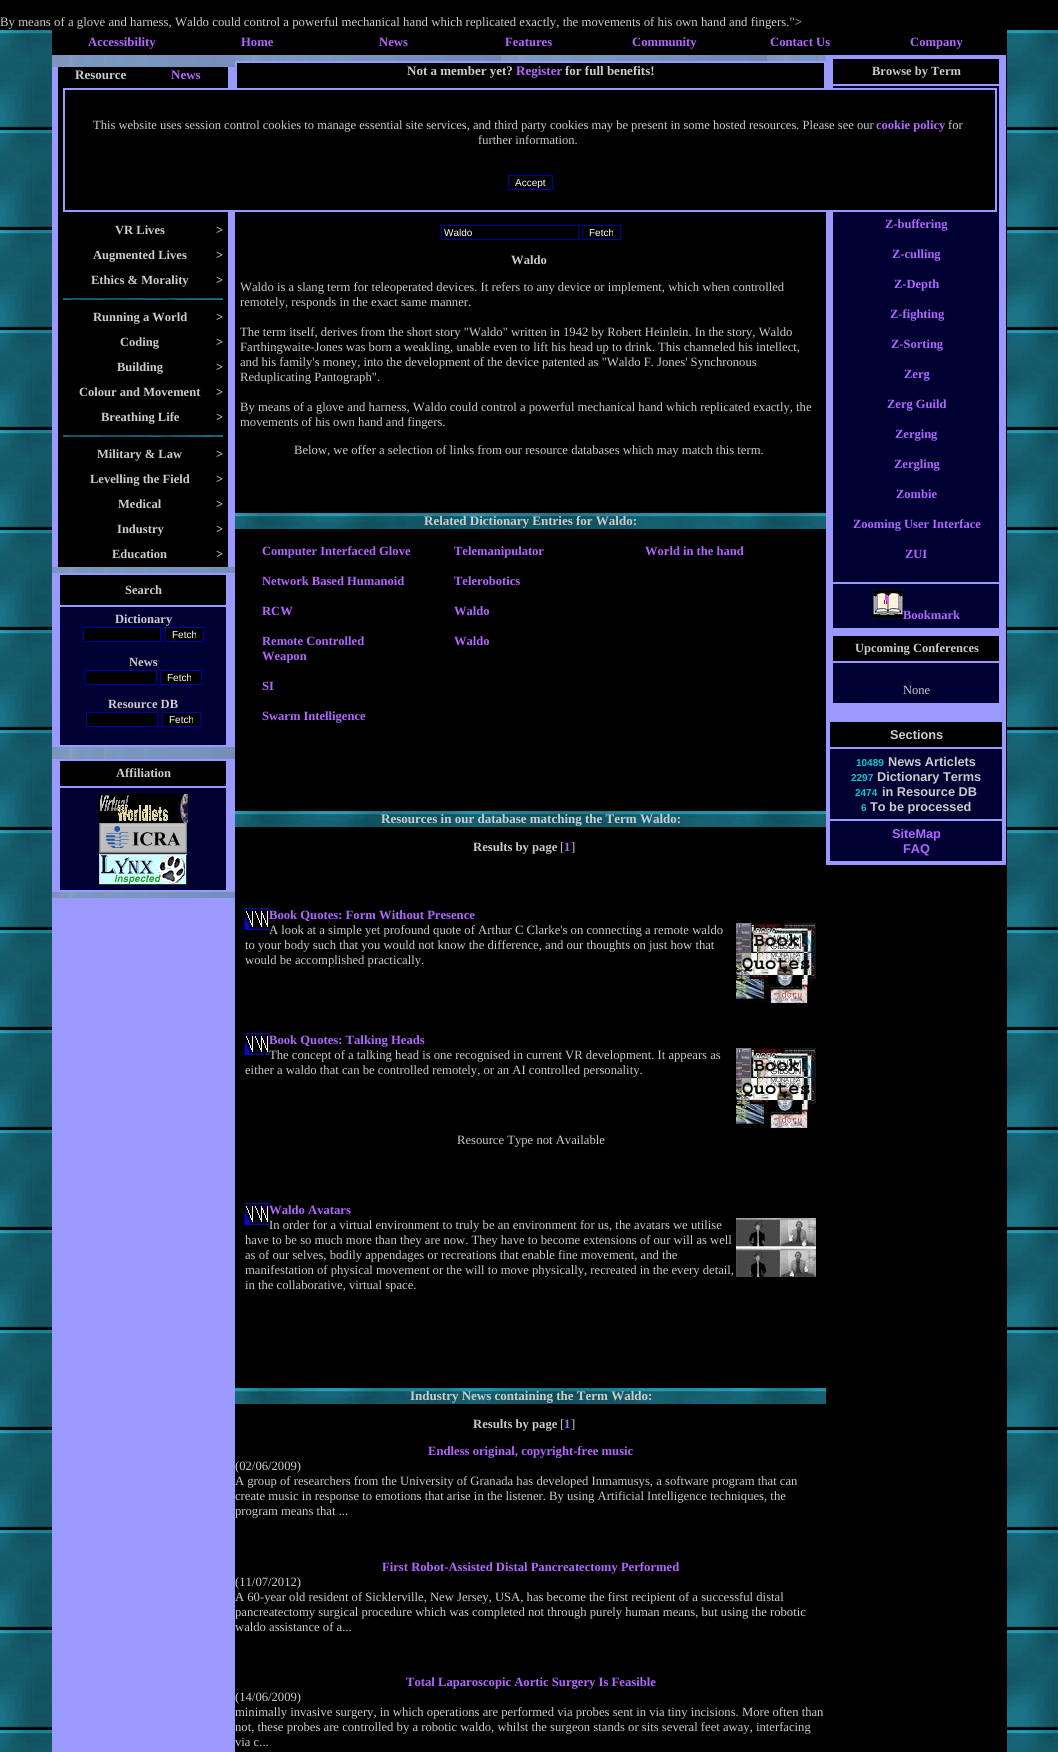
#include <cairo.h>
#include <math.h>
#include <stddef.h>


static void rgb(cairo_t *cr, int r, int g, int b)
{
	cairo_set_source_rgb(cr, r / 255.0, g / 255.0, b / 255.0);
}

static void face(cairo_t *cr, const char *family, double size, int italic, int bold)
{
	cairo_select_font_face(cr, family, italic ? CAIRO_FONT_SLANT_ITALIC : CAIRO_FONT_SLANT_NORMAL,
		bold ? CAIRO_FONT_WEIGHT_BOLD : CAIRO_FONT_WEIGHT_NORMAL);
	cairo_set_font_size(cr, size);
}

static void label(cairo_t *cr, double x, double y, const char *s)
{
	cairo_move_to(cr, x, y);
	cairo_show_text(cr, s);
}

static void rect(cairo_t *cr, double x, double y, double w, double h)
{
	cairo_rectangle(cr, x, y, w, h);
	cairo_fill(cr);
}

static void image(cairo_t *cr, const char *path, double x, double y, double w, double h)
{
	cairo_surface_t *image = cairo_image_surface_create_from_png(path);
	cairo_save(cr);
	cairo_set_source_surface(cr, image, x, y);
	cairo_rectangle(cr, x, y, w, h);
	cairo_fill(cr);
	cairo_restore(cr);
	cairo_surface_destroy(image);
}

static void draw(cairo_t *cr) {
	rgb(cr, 0, 0, 0);
	cairo_paint(cr);
	face(cr, "Liberation Serif", 12.8, 0, 0);
	rgb(cr, 204, 204, 204);
	label(cr, 0, 26, "By means of a glove and harness, Waldo could control a powerful mechanical hand which replicated exactly, the movements of his own hand and fingers.\">");
	image(cr, "image0.png", 0, 30, 1058, 1722);
	rgb(cr, 0, 0, 0);
	rect(cr, 52, 30, 955, 25);
	face(cr, "Liberation Serif", 12.65, 0, 1);
	rgb(cr, 178, 102, 255);
	label(cr, 88, 46, "Accessibility");
	label(cr, 241, 46, "Home");
	label(cr, 379, 46, "News");
	label(cr, 505, 46, "Features");
	label(cr, 632, 46, "Community");
	label(cr, 770, 46, "Contact Us");
	label(cr, 910, 46, "Company");
	rgb(cr, 0, 0, 0);
	rect(cr, 235, 55, 772, 1697);
	image(cr, "image1.png", 235, 55, 591, 6);
	rgb(cr, 153, 153, 255);
	rect(cr, 235, 61, 591, 27);
	rgb(cr, 0, 0, 0);
	rect(cr, 237, 63, 587, 25);
	face(cr, "Liberation Serif", 13, 0, 1);
	rgb(cr, 204, 204, 204);
	label(cr, 407, 75, "Not a member yet?");
	rgb(cr, 178, 102, 255);
	label(cr, 516, 75, "Register");
	rgb(cr, 204, 204, 204);
	label(cr, 565, 75, "for full benefits!");
	image(cr, "image2.png", 242, 79, 270, 9);
	cairo_rectangle(cr, 441.5, 225.5, 137, 14);
	rgb(cr, 0, 0, 170);
	cairo_set_line_width(cr, 1);
	cairo_stroke(cr);
	face(cr, "Liberation Sans", 10, 0, 0);
	rgb(cr, 255, 255, 255);
	label(cr, 444, 236, "Waldo");
	cairo_rectangle(cr, 582.5, 225.5, 38, 14);
	rgb(cr, 0, 0, 170);
	cairo_stroke(cr);
	rgb(cr, 255, 255, 255);
	label(cr, 589, 236, "Fetch");
	face(cr, "Liberation Serif", 12.65, 0, 1);
	rgb(cr, 204, 204, 204);
	label(cr, 511, 264, "Waldo");
	face(cr, "Liberation Serif", 12.65, 0, 0);
	label(cr, 240, 291, "Waldo is a slang term for teleoperated devices. It refers to any device or implement, which when controlled");
	label(cr, 240, 306, "remotely, responds in the exact same manner.");
	label(cr, 240, 336, "The term itself, derives from the short story \"Waldo\" written in 1942 by Robert Heinlein. In the story, Waldo");
	label(cr, 240, 351, "Farthingwaite-Jones was born a weakling, unable even to lift his head up to drink. This channeled his intellect,");
	label(cr, 240, 366, "and his family's money, into the development of the device patented as \"Waldo F. Jones' Synchronous");
	label(cr, 240, 381, "Reduplicating Pantograph\".");
	label(cr, 240, 411, "By means of a glove and harness, Waldo could control a powerful mechanical hand which replicated exactly, the");
	label(cr, 240, 426, "movements of his own hand and fingers.");
	label(cr, 294, 454, "Below, we offer a selection of links from our resource databases which may match this term.");
	image(cr, "image3.png", 235, 513, 591, 16);
	face(cr, "Liberation Serif", 13, 0, 1);
	label(cr, 424, 525, "Related Dictionary Entries for Waldo:");
	face(cr, "Liberation Serif", 12.55, 0, 1);
	rgb(cr, 178, 102, 255);
	label(cr, 262, 555, "Computer Interfaced Glove");
	label(cr, 262, 585, "Network Based Humanoid");
	label(cr, 262, 615, "RCW");
	label(cr, 262, 645, "Remote Controlled");
	label(cr, 262, 660, "Weapon");
	label(cr, 262, 690, "SI");
	label(cr, 262, 720, "Swarm Intelligence");
	label(cr, 454, 555, "Telemanipulator");
	label(cr, 454, 585, "Telerobotics");
	label(cr, 454, 615, "Waldo");
	label(cr, 454, 645, "Waldo");
	label(cr, 645, 555, "World in the hand");
	image(cr, "image3.png", 235, 811, 591, 16);
	face(cr, "Liberation Serif", 13, 0, 1);
	rgb(cr, 204, 204, 204);
	label(cr, 381, 823, "Resources in our database matching the Term Waldo:");
	face(cr, "Liberation Serif", 12.65, 0, 1);
	label(cr, 473, 851, "Results by page");
	face(cr, "Liberation Serif", 12.65, 0, 0);
	label(cr, 560, 851, "[");
	face(cr, "Liberation Serif", 12.65, 0, 1);
	rgb(cr, 178, 102, 255);
	label(cr, 564, 851, "1");
	face(cr, "Liberation Serif", 12.65, 0, 0);
	rgb(cr, 204, 204, 204);
	label(cr, 571, 851, "]");
	image(cr, "image4.png", 245, 908, 24, 22);
	face(cr, "Liberation Serif", 12.65, 0, 1);
	rgb(cr, 178, 102, 255);
	label(cr, 269, 919, "Book Quotes: Form Without Presence");
	face(cr, "Liberation Serif", 12.65, 0, 0);
	rgb(cr, 204, 204, 204);
	label(cr, 269, 934, "A look at a simple yet profound quote of Arthur C Clarke's on connecting a remote waldo");
	image(cr, "image5.png", 736, 923, 80, 80);
	label(cr, 245, 949, "to your body such that you would not know the difference, and our thoughts on just how that");
	label(cr, 245, 964, "would be accomplished practically.");
	image(cr, "image4.png", 245, 1033, 24, 22);
	face(cr, "Liberation Serif", 12.65, 0, 1);
	rgb(cr, 178, 102, 255);
	label(cr, 269, 1044, "Book Quotes: Talking Heads");
	face(cr, "Liberation Serif", 12.65, 0, 0);
	rgb(cr, 204, 204, 204);
	label(cr, 269, 1059, "The concept of a talking head is one recognised in current VR development. It appears as");
	image(cr, "image5.png", 736, 1048, 80, 80);
	label(cr, 245, 1074, "either a waldo that can be controlled remotely, or an AI controlled personality.");
	label(cr, 457, 1144, "Resource Type not Available");
	image(cr, "image4.png", 245, 1203, 24, 22);
	face(cr, "Liberation Serif", 12.65, 0, 1);
	rgb(cr, 178, 102, 255);
	label(cr, 269, 1214, "Waldo Avatars");
	face(cr, "Liberation Serif", 12.65, 0, 0);
	rgb(cr, 204, 204, 204);
	label(cr, 269, 1229, "In order for a virtual environment to truly be an environment for us, the avatars we utilise");
	image(cr, "image6.png", 736, 1218, 80, 59);
	label(cr, 245, 1244, "have to be so much more than they are now. They have to become extensions of our will as well");
	label(cr, 245, 1259, "as of our selves, bodily appendages or recreations that enable fine movement, and the");
	label(cr, 245, 1274, "manifestation of physical movement or the will to move physically, recreated in the every detail,");
	label(cr, 245, 1289, "in the collaborative, virtual space.");
	image(cr, "image3.png", 235, 1388, 591, 16);
	face(cr, "Liberation Serif", 13, 0, 1);
	label(cr, 410, 1400, "Industry News containing the Term Waldo:");
	face(cr, "Liberation Serif", 12.65, 0, 1);
	label(cr, 473, 1428, "Results by page");
	face(cr, "Liberation Serif", 12.65, 0, 0);
	label(cr, 560, 1428, "[");
	face(cr, "Liberation Serif", 12.65, 0, 1);
	rgb(cr, 178, 102, 255);
	label(cr, 564, 1428, "1");
	face(cr, "Liberation Serif", 12.65, 0, 0);
	rgb(cr, 204, 204, 204);
	label(cr, 571, 1428, "]");
	face(cr, "Liberation Serif", 12.65, 0, 1);
	rgb(cr, 178, 102, 255);
	label(cr, 428, 1455, "Endless original, copyright-free music");
	face(cr, "Liberation Serif", 12.65, 0, 0);
	rgb(cr, 204, 204, 204);
	label(cr, 235, 1470, "(02/06/2009)");
	label(cr, 235, 1485, "A group of researchers from the University of Granada has developed Inmamusys, a software program that can");
	label(cr, 235, 1500, "create music in response to emotions that arise in the listener. By using Artificial Intelligence techniques, the");
	label(cr, 235, 1515, "program means that ...");
	face(cr, "Liberation Serif", 12.65, 0, 1);
	rgb(cr, 178, 102, 255);
	label(cr, 382, 1571, "First Robot-Assisted Distal Pancreatectomy Performed");
	face(cr, "Liberation Serif", 12.65, 0, 0);
	rgb(cr, 204, 204, 204);
	label(cr, 235, 1586, "(11/07/2012)");
	label(cr, 235, 1601, "A 60-year old resident of Sicklerville, New Jersey, USA, has become the first recipient of a successful distal");
	label(cr, 235, 1616, "pancreatectomy surgical procedure which was completed not through purely human means, but using the robotic");
	label(cr, 235, 1631, "waldo assistance of a...");
	face(cr, "Liberation Serif", 12.65, 0, 1);
	rgb(cr, 178, 102, 255);
	label(cr, 406, 1686, "Total Laparoscopic Aortic Surgery Is Feasible");
	face(cr, "Liberation Serif", 12.65, 0, 0);
	rgb(cr, 204, 204, 204);
	label(cr, 235, 1701, "(14/06/2009)");
	label(cr, 235, 1716, "minimally invasive surgery, in which operations are performed via probes sent in via tiny incisions. More often than");
	label(cr, 235, 1731, "not, these probes are controlled by a robotic waldo, whilst the surgeon stands or sits several feet away, interfacing");
	label(cr, 235, 1746, "via c...");
	rgb(cr, 153, 153, 255);
	rect(cr, 826, 55, 180, 810);
	rgb(cr, 0, 0, 0);
	rect(cr, 833, 59, 166, 25);
	face(cr, "Liberation Serif", 12.5, 0, 1);
	rgb(cr, 204, 204, 204);
	label(cr, 872, 75, "Browse by Term");
	rgb(cr, 0, 0, 51);
	rect(cr, 833, 86, 166, 496);
	rgb(cr, 178, 102, 255);
	label(cr, 885, 228, "Z-buffering");
	label(cr, 892, 258, "Z-culling");
	label(cr, 894, 288, "Z-Depth");
	label(cr, 890, 318, "Z-fighting");
	label(cr, 891, 348, "Z-Sorting");
	label(cr, 904, 378, "Zerg");
	label(cr, 887, 408, "Zerg Guild");
	label(cr, 895, 438, "Zerging");
	label(cr, 894, 468, "Zergling");
	label(cr, 896, 498, "Zombie");
	label(cr, 853, 528, "Zooming User Interface");
	label(cr, 905, 558, "ZUI");
	rgb(cr, 0, 0, 51);
	rect(cr, 833, 584, 166, 44);
	image(cr, "image7.png", 873, 589, 30, 30);
	rgb(cr, 178, 102, 255);
	label(cr, 903, 619, "Bookmark");
	rgb(cr, 0, 0, 0);
	rect(cr, 833, 636, 166, 25);
	rgb(cr, 204, 204, 204);
	label(cr, 855, 652, "Upcoming Conferences");
	rgb(cr, 0, 0, 51);
	rect(cr, 833, 663, 166, 40);
	face(cr, "Liberation Serif", 12.5, 0, 0);
	rgb(cr, 204, 204, 204);
	label(cr, 903, 694, "None");
	rgb(cr, 0, 0, 0);
	rect(cr, 830, 722, 172, 25);
	face(cr, "Liberation Sans", 12.75, 0, 1);
	rgb(cr, 204, 204, 204);
	label(cr, 890, 739, "Sections");
	rgb(cr, 0, 0, 51);
	rect(cr, 830, 749, 172, 70);
	face(cr, "Liberation Sans", 10, 0, 1);
	rgb(cr, 0, 206, 209);
	label(cr, 856, 766, "10489");
	face(cr, "Liberation Sans", 12.75, 0, 1);
	rgb(cr, 204, 204, 204);
	label(cr, 888, 766, "News Articlets");
	face(cr, "Liberation Sans", 10, 0, 1);
	rgb(cr, 0, 206, 209);
	label(cr, 851, 781, "2297");
	face(cr, "Liberation Sans", 12.75, 0, 1);
	rgb(cr, 204, 204, 204);
	label(cr, 877, 781, "Dictionary Terms");
	face(cr, "Liberation Sans", 10, 0, 1);
	rgb(cr, 0, 206, 209);
	label(cr, 855, 796, "2474");
	face(cr, "Liberation Sans", 12.75, 0, 1);
	rgb(cr, 204, 204, 204);
	label(cr, 882, 796, "in Resource DB");
	face(cr, "Liberation Sans", 10, 0, 1);
	rgb(cr, 0, 206, 209);
	label(cr, 861, 811, "6");
	face(cr, "Liberation Sans", 12.75, 0, 1);
	rgb(cr, 204, 204, 204);
	label(cr, 870, 811, "To be processed");
	rgb(cr, 0, 0, 51);
	rect(cr, 830, 821, 172, 40);
	rgb(cr, 178, 102, 255);
	label(cr, 892, 838, "SiteMap");
	label(cr, 903, 853, "FAQ");
	rgb(cr, 153, 153, 255);
	rect(cr, 52, 67, 183, 1685);
	image(cr, "image8.png", 52, 55, 183, 6);
	image(cr, "image8.png", 52, 61, 183, 6);
	rgb(cr, 0, 0, 0);
	rect(cr, 58, 67, 170, 500);
	face(cr, "Liberation Serif", 13, 0, 1);
	rgb(cr, 204, 204, 204);
	label(cr, 75, 79, "Resource");
	rgb(cr, 178, 102, 255);
	label(cr, 171, 79, "News");
	rgb(cr, 0, 0, 0);
	rect(cr, 228, 90, 767, 120);
	cairo_rectangle(cr, 64, 89, 932, 122);
	rgb(cr, 153, 153, 255);
	cairo_set_line_width(cr, 2);
	cairo_stroke(cr);
	face(cr, "Liberation Serif", 12.55, 0, 0);
	rgb(cr, 204, 204, 204);
	label(cr, 93, 129, "This website uses session control cookies to manage essential site services, and third party cookies may be present in some hosted resources. Please see our");
	face(cr, "Liberation Serif", 12.55, 0, 1);
	rgb(cr, 178, 102, 255);
	label(cr, 876, 129, "cookie policy");
	face(cr, "Liberation Serif", 12.55, 0, 0);
	rgb(cr, 204, 204, 204);
	label(cr, 948, 129, "for");
	label(cr, 478, 144, "further information.");
	cairo_rectangle(cr, 508.5, 175.5, 44, 14);
	rgb(cr, 0, 0, 170);
	cairo_set_line_width(cr, 1);
	cairo_stroke(cr);
	face(cr, "Liberation Sans", 10, 0, 0);
	rgb(cr, 255, 255, 255);
	label(cr, 515, 186, "Accept");
	face(cr, "Liberation Serif", 12.55, 0, 1);
	rgb(cr, 204, 204, 204);
	label(cr, 115, 234, "VR Lives");
	label(cr, 216, 234, ">");
	label(cr, 93, 259, "Augmented Lives");
	label(cr, 216, 259, ">");
	label(cr, 91, 284, "Ethics & Morality");
	label(cr, 216, 284, ">");
	image(cr, "image9.png", 63, 298, 160, 2);
	label(cr, 93, 321, "Running a World");
	label(cr, 216, 321, ">");
	label(cr, 120, 346, "Coding");
	label(cr, 216, 346, ">");
	label(cr, 117, 371, "Building");
	label(cr, 216, 371, ">");
	label(cr, 79, 396, "Colour and Movement");
	label(cr, 216, 396, ">");
	label(cr, 101, 421, "Breathing Life");
	label(cr, 216, 421, ">");
	image(cr, "image9.png", 63, 435, 160, 2);
	label(cr, 97, 458, "Military & Law");
	label(cr, 216, 458, ">");
	label(cr, 90, 483, "Levelling the Field");
	label(cr, 216, 483, ">");
	label(cr, 118, 508, "Medical");
	label(cr, 216, 508, ">");
	label(cr, 117, 533, "Industry");
	label(cr, 216, 533, ">");
	label(cr, 112, 558, "Education");
	label(cr, 216, 558, ">");
	image(cr, "image8.png", 52, 567, 183, 6);
	rgb(cr, 0, 0, 0);
	rect(cr, 60, 575, 166, 30);
	rgb(cr, 204, 204, 204);
	label(cr, 125, 594, "Search");
	rgb(cr, 0, 0, 51);
	rect(cr, 60, 607, 166, 138);
	rgb(cr, 204, 204, 204);
	label(cr, 115, 623, "Dictionary");
	rgb(cr, 0, 0, 0);
	cairo_rectangle(cr, 83.5, 627.5, 77, 14);
	cairo_fill_preserve(cr);
	rgb(cr, 0, 0, 170);
	cairo_stroke(cr);
	rgb(cr, 0, 0, 0);
	cairo_rectangle(cr, 165.5, 627.5, 38, 14);
	cairo_fill_preserve(cr);
	rgb(cr, 0, 0, 170);
	cairo_stroke(cr);
	face(cr, "Liberation Sans", 10, 0, 0);
	rgb(cr, 255, 255, 255);
	label(cr, 172, 638, "Fetch");
	face(cr, "Liberation Serif", 12.55, 0, 1);
	rgb(cr, 204, 204, 204);
	label(cr, 129, 666, "News");
	rgb(cr, 0, 0, 0);
	cairo_rectangle(cr, 85.5, 670.5, 71, 14);
	cairo_fill_preserve(cr);
	rgb(cr, 0, 0, 170);
	cairo_stroke(cr);
	rgb(cr, 0, 0, 0);
	cairo_rectangle(cr, 160.5, 670.5, 41, 14);
	cairo_fill_preserve(cr);
	rgb(cr, 0, 0, 170);
	cairo_stroke(cr);
	face(cr, "Liberation Sans", 10, 0, 0);
	rgb(cr, 255, 255, 255);
	label(cr, 167, 681, "Fetch");
	face(cr, "Liberation Serif", 12.55, 0, 1);
	rgb(cr, 204, 204, 204);
	label(cr, 108, 708, "Resource DB");
	rgb(cr, 0, 0, 0);
	cairo_rectangle(cr, 86.5, 712.5, 71, 14);
	cairo_fill_preserve(cr);
	rgb(cr, 0, 0, 170);
	cairo_stroke(cr);
	rgb(cr, 0, 0, 0);
	cairo_rectangle(cr, 162.5, 712.5, 38, 14);
	cairo_fill_preserve(cr);
	rgb(cr, 0, 0, 170);
	cairo_stroke(cr);
	face(cr, "Liberation Sans", 10, 0, 0);
	rgb(cr, 255, 255, 255);
	label(cr, 169, 723, "Fetch");
	image(cr, "image8.png", 52, 747, 183, 6);
	image(cr, "image8.png", 52, 753, 183, 6);
	rgb(cr, 0, 0, 0);
	rect(cr, 60, 761, 166, 25);
	face(cr, "Liberation Serif", 12.55, 0, 1);
	rgb(cr, 204, 204, 204);
	label(cr, 116, 777, "Affiliation");
	rgb(cr, 0, 0, 51);
	rect(cr, 60, 788, 166, 102);
	image(cr, "image10.png", 98, 793, 90, 30);
	image(cr, "image11.png", 99, 823, 88, 31);
	image(cr, "image12.png", 99, 854, 88, 31);
	image(cr, "image8.png", 52, 892, 183, 6);
}

int main(void) {
	cairo_surface_t *surface = cairo_image_surface_create(CAIRO_FORMAT_RGB24, 1058, 1752);
	cairo_t *cr = cairo_create(surface);
	cairo_font_options_t *options = cairo_font_options_create();
	cairo_font_options_set_hint_metrics(options, CAIRO_HINT_METRICS_OFF);
	cairo_font_options_set_hint_style(options, CAIRO_HINT_STYLE_NONE);
	cairo_set_font_options(cr, options);
	cairo_set_miter_limit(cr, 4);
	draw(cr);
	cairo_surface_write_to_png(surface, "render.png");
	cairo_font_options_destroy(options);
	cairo_destroy(cr);
	cairo_surface_destroy(surface);
	return 0;
}
